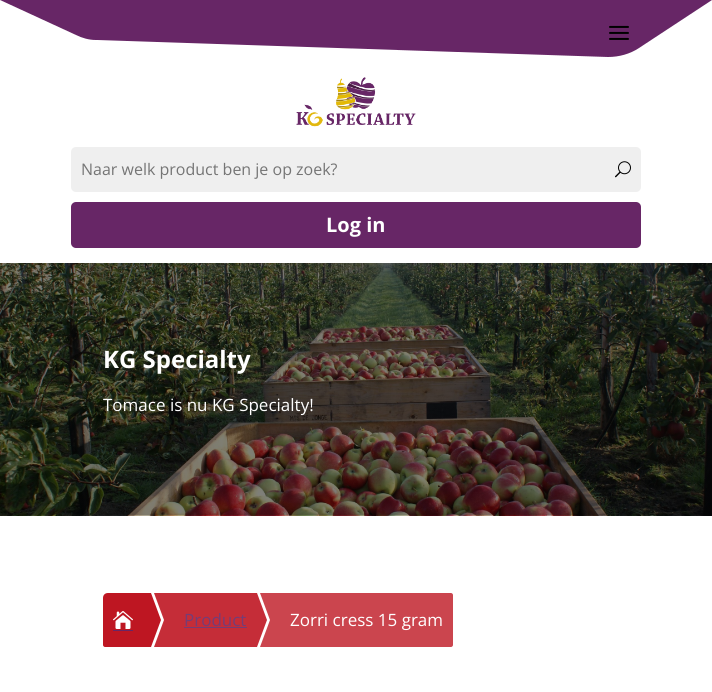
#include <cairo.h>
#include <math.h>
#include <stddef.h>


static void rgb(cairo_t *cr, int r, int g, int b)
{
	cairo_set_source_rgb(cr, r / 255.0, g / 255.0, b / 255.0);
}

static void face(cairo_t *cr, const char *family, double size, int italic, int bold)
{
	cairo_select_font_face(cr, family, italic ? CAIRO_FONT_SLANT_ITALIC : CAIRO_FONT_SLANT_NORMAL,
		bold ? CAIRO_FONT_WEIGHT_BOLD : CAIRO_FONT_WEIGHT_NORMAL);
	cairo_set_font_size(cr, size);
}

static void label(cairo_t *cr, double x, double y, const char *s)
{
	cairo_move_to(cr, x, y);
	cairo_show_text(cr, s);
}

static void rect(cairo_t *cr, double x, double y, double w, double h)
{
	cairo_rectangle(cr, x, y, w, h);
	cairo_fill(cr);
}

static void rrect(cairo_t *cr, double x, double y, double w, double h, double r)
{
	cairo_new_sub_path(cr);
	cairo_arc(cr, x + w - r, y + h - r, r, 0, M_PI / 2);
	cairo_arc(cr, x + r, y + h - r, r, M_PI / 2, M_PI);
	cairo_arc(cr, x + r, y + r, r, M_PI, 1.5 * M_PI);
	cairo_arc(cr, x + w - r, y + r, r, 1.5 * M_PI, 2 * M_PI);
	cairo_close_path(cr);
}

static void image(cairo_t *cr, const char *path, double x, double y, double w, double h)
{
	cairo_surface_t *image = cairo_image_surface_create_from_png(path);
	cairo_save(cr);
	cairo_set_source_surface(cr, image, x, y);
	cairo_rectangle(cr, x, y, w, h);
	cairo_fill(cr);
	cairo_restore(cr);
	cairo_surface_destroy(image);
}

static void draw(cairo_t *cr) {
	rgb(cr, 255, 255, 255);
	cairo_paint(cr);
	rgb(cr, 103, 38, 102);
	cairo_new_path(cr);
	cairo_move_to(cr, 712, 0);
	cairo_line_to(cr, 639, 48);
	cairo_curve_to(cr, 630, 54, 619, 57, 608, 57);
	cairo_line_to(cr, 96, 40);
	cairo_curve_to(cr, 89, 40, 82, 38, 76, 35);
	cairo_line_to(cr, 0, 0);
	cairo_close_path(cr);
	cairo_fill(cr);
	image(cr, "image0.png", 609, 25, 20, 15);
	image(cr, "image1.png", 296, 77, 120, 50);
	rgb(cr, 239, 239, 239);
	rrect(cr, 71, 147, 570, 45, 5);
	cairo_fill(cr);
	face(cr, "Open Sans", 16, 0, 0);
	rgb(cr, 117, 117, 117);
	label(cr, 81, 175, "Naar welk product ben je op zoek?");
	image(cr, "image2.png", 615, 161, 16, 17);
	rgb(cr, 103, 38, 102);
	rrect(cr, 71, 202, 570, 46, 5);
	cairo_fill(cr);
	face(cr, "Open Sans", 20, 0, 1);
	rgb(cr, 255, 255, 255);
	label(cr, 326, 232, "Log in");
	image(cr, "image3.png", 0, 263, 712, 253);
	face(cr, "Open Sans", 24, 0, 1);
	label(cr, 103, 368, "KG Specialty");
	face(cr, "Open Sans", 17, 0, 0);
	label(cr, 103, 411, "Tomace is nu KG Specialty!");
	rgb(cr, 190, 22, 34);
	cairo_new_path(cr);
	cairo_move_to(cr, 108, 593);
	cairo_line_to(cr, 151, 593);
	cairo_line_to(cr, 151, 647);
	cairo_line_to(cr, 105, 647);
	cairo_curve_to(cr, 104, 647, 103, 646, 103, 645);
	cairo_line_to(cr, 103, 598);
	cairo_curve_to(cr, 103, 595, 105, 593, 108, 593);
	cairo_close_path(cr);
	cairo_fill(cr);
	image(cr, "image4.png", 113, 611, 20, 18);
	rgb(cr, 103, 38, 102);
	rect(cr, 113, 630, 20, 1);
	rgb(cr, 190, 22, 34);
	cairo_new_path(cr);
	cairo_move_to(cr, 151, 647);
	cairo_line_to(cr, 151, 593);
	cairo_line_to(cr, 161, 620);
	cairo_close_path(cr);
	cairo_fill(cr);
	rgb(cr, 197, 45, 56);
	rect(cr, 174, 593, 83, 54);
	cairo_new_path(cr);
	cairo_move_to(cr, 154, 593);
	cairo_line_to(cr, 174, 593);
	cairo_line_to(cr, 164, 620);
	cairo_close_path(cr);
	cairo_fill(cr);
	rect(cr, 164, 593, 10, 54);
	cairo_new_path(cr);
	cairo_move_to(cr, 174, 647);
	cairo_line_to(cr, 154, 647);
	cairo_line_to(cr, 164, 620);
	cairo_close_path(cr);
	cairo_fill(cr);
	rgb(cr, 118, 60, 117);
	label(cr, 184, 626, "Product");
	rect(cr, 184, 627, 63, 1);
	rgb(cr, 197, 45, 56);
	cairo_new_path(cr);
	cairo_move_to(cr, 257, 647);
	cairo_line_to(cr, 257, 593);
	cairo_line_to(cr, 267, 620);
	cairo_close_path(cr);
	cairo_fill(cr);
	rgb(cr, 203, 69, 78);
	cairo_new_path(cr);
	cairo_move_to(cr, 280, 593);
	cairo_line_to(cr, 451, 593);
	cairo_curve_to(cr, 452, 593, 453, 594, 453, 595);
	cairo_line_to(cr, 453, 645);
	cairo_curve_to(cr, 453, 646, 452, 647, 451, 647);
	cairo_line_to(cr, 280, 647);
	cairo_close_path(cr);
	cairo_fill(cr);
	cairo_new_path(cr);
	cairo_move_to(cr, 260, 593);
	cairo_line_to(cr, 280, 593);
	cairo_line_to(cr, 270, 620);
	cairo_close_path(cr);
	cairo_fill(cr);
	rect(cr, 270, 593, 10, 54);
	cairo_new_path(cr);
	cairo_move_to(cr, 280, 647);
	cairo_line_to(cr, 260, 647);
	cairo_line_to(cr, 270, 620);
	cairo_close_path(cr);
	cairo_fill(cr);
	rgb(cr, 255, 255, 255);
	label(cr, 290, 626, "Zorri cress 15 gram");
}

int main(void) {
	cairo_surface_t *surface = cairo_image_surface_create(CAIRO_FORMAT_RGB24, 712, 692);
	cairo_t *cr = cairo_create(surface);
	cairo_font_options_t *options = cairo_font_options_create();
	cairo_font_options_set_hint_metrics(options, CAIRO_HINT_METRICS_OFF);
	cairo_font_options_set_hint_style(options, CAIRO_HINT_STYLE_NONE);
	cairo_set_font_options(cr, options);
	cairo_set_miter_limit(cr, 4);
	draw(cr);
	cairo_surface_write_to_png(surface, "render.png");
	cairo_font_options_destroy(options);
	cairo_destroy(cr);
	cairo_surface_destroy(surface);
	return 0;
}
